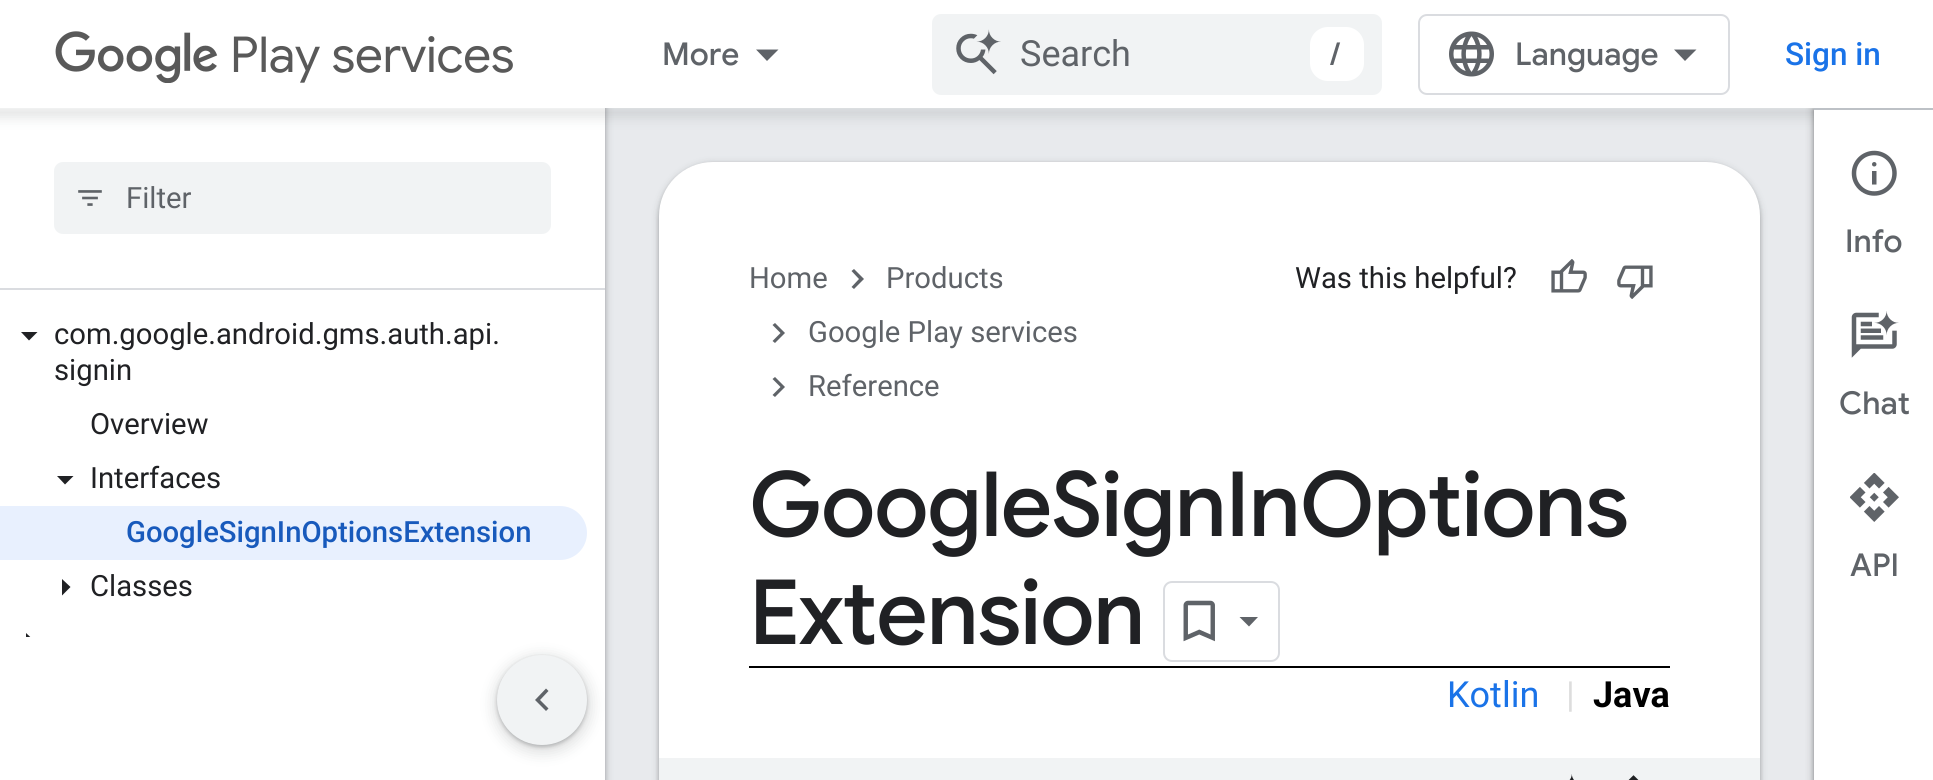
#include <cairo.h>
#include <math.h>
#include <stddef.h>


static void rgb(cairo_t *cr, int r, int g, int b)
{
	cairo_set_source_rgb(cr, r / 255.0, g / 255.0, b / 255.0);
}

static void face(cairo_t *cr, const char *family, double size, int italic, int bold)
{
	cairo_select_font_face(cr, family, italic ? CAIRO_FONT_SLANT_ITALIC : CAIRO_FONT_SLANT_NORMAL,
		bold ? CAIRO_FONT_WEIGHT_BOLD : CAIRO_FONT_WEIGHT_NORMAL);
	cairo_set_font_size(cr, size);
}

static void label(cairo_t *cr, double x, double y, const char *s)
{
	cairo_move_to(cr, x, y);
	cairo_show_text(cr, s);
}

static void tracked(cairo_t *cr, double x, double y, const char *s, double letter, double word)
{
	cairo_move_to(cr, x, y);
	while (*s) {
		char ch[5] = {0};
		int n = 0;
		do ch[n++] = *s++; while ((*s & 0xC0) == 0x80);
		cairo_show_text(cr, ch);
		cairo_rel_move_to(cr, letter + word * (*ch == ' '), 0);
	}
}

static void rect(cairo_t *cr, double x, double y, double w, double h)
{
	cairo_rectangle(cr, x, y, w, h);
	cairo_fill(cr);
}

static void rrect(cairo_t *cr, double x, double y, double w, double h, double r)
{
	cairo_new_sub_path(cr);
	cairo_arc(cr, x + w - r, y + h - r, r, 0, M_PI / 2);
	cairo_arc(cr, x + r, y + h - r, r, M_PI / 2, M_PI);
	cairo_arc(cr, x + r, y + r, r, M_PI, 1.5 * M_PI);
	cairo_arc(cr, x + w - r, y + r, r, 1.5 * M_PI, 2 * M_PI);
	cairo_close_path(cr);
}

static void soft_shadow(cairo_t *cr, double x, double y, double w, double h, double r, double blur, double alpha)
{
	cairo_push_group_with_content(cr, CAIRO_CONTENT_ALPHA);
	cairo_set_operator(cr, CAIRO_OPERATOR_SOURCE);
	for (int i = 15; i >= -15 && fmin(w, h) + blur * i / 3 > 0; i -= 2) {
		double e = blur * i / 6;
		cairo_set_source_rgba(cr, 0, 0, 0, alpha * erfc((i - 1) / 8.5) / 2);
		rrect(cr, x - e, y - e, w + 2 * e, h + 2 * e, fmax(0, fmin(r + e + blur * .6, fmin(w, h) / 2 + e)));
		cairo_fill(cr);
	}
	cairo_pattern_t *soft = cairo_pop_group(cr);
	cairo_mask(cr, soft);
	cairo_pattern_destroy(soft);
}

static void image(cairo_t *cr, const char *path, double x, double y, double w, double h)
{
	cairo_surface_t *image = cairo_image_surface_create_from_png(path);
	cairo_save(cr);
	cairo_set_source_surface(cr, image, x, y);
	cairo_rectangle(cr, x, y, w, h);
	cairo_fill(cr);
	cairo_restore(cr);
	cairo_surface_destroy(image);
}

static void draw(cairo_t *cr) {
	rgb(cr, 232, 234, 237);
	cairo_paint(cr);
	rgb(cr, 60, 64, 67);
	soft_shadow(cr, -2, 0, 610, 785, 0, 3.5, 0.15);
	soft_shadow(cr, 0, 2, 605, 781, 0, 2, 0.3);
	rgb(cr, 255, 255, 255);
	rect(cr, 0, 290, 605, 347);
	rect(cr, 0, 108, 605, 180);
	rgb(cr, 60, 64, 67);
	soft_shadow(cr, -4, 108, 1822, 9, 0, 7, 0.15);
	rgb(cr, 0, 0, 0);
	soft_shadow(cr, 1811, 108, 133, 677, 0, 3.5, 0.15);
	soft_shadow(cr, 1814, 110, 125, 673, 0, 2, 0.3);
	rgb(cr, 255, 255, 255);
	rect(cr, 0, 0, 1933, 108);
	image(cr, "image0.png", 55, 31, 163, 52);
	face(cr, "Google Sans", 49.5, 0, 0);
	rgb(cr, 89, 89, 89);
	label(cr, 230, 72, "Play services");
	face(cr, "Google Sans Medium", 31.5, 0, 0);
	rgb(cr, 95, 99, 104);
	label(cr, 662, 65, "More");
	cairo_new_path(cr);
	cairo_move_to(cr, 756, 49.5);
	cairo_line_to(cr, 778.5, 49.5);
	cairo_line_to(cr, 767, 61);
	cairo_close_path(cr);
	cairo_fill(cr);
	rgb(cr, 241, 243, 244);
	rrect(cr, 932, 14, 450, 81, 9);
	cairo_fill(cr);
	image(cr, "image1.png", 956, 29, 45, 46);
	face(cr, "Roboto", 36, 0, 0);
	rgb(cr, 95, 99, 104);
	label(cr, 1020, 66, "Search");
	rgb(cr, 255, 255, 255);
	rrect(cr, 1310, 27, 54, 54, 18);
	cairo_fill(cr);
	face(cr, "Google Sans Medium", 31.5, 0, 0);
	rgb(cr, 95, 99, 104);
	label(cr, 1330, 65, "/");
	rrect(cr, 1419, 15, 310, 79, 8);
	rgb(cr, 218, 220, 224);
	cairo_stroke(cr);
	image(cr, "image2.png", 1449, 31, 45, 46);
	rgb(cr, 95, 99, 104);
	label(cr, 1515, 65, "Language");
	cairo_new_path(cr);
	cairo_move_to(cr, 1685, 61);
	cairo_line_to(cr, 1674, 49.5);
	cairo_line_to(cr, 1696.5, 49.5);
	cairo_close_path(cr);
	cairo_fill(cr);
	face(cr, "Roboto Medium", 31.5, 0, 0);
	rgb(cr, 26, 115, 232);
	label(cr, 1785, 65, "Sign in");
	rgb(cr, 218, 220, 224);
	rect(cr, 0, 288, 605, 2);
	rgb(cr, 241, 243, 244);
	rrect(cr, 54, 162, 497, 72, 9);
	cairo_fill(cr);
	image(cr, "image3.png", 78, 190, 24, 16);
	face(cr, "Roboto", 29.25, 0, 0);
	rgb(cr, 95, 99, 104);
	label(cr, 126, 208, "Filter");
	rgb(cr, 32, 33, 36);
	cairo_new_path(cr);
	cairo_move_to(cr, 21, 332);
	cairo_line_to(cr, 37.5, 332);
	cairo_line_to(cr, 29, 340.5);
	cairo_close_path(cr);
	cairo_fill(cr);
	label(cr, 54, 344, "com.google.android.gms.auth.api.");
	label(cr, 54, 380, "signin");
	label(cr, 90, 434, "Overview");
	cairo_new_path(cr);
	cairo_move_to(cr, 57, 476);
	cairo_line_to(cr, 73.5, 476);
	cairo_line_to(cr, 65, 484.5);
	cairo_close_path(cr);
	cairo_fill(cr);
	label(cr, 90, 488, "Interfaces");
	rgb(cr, 232, 240, 254);
	cairo_new_path(cr);
	cairo_move_to(cr, 0, 506);
	cairo_line_to(cr, 560, 506);
	cairo_curve_to(cr, 575, 506, 587, 518, 587, 533);
	cairo_curve_to(cr, 587, 548, 575, 560, 560, 560);
	cairo_line_to(cr, 0, 560);
	cairo_close_path(cr);
	cairo_fill(cr);
	face(cr, "Roboto Medium", 29.25, 0, 0);
	rgb(cr, 24, 90, 188);
	label(cr, 126, 542, "GoogleSignInOptionsExtension");
	rgb(cr, 32, 33, 36);
	cairo_new_path(cr);
	cairo_move_to(cr, 62, 595.5);
	cairo_line_to(cr, 62, 579);
	cairo_line_to(cr, 70.5, 587);
	cairo_close_path(cr);
	cairo_fill(cr);
	face(cr, "Roboto", 29.25, 0, 0);
	label(cr, 90, 596, "Classes");
	cairo_new_path(cr);
	cairo_move_to(cr, 26, 649.5);
	cairo_line_to(cr, 26, 633);
	cairo_line_to(cr, 34.5, 641);
	cairo_close_path(cr);
	cairo_fill(cr);
	rgb(cr, 255, 255, 255);
	rect(cr, 0, 637, 605, 143);
	rgb(cr, 60, 64, 67);
	soft_shadow(cr, 493, 655, 99, 99, 49.5, 7, 0.15);
	soft_shadow(cr, 497, 657, 90, 90, 45, 2, 0.3);
	rgb(cr, 241, 243, 244);
	cairo_arc(cr, 542, 700, 45, 0, 2 * M_PI);
	cairo_fill(cr);
	rgb(cr, 95, 99, 104);
	cairo_new_path(cr);
	cairo_move_to(cr, 548.5, 691);
	cairo_line_to(cr, 540, 700);
	cairo_line_to(cr, 548.5, 708.5);
	cairo_line_to(cr, 546, 711);
	cairo_line_to(cr, 535, 700);
	cairo_line_to(cr, 546, 688.5);
	cairo_close_path(cr);
	cairo_fill(cr);
	rgb(cr, 60, 64, 67);
	soft_shadow(cr, 657, 162, 1105, 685, 56, 3.5, 0.15);
	soft_shadow(cr, 659, 164, 1101, 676, 54, 2, 0.3);
	rgb(cr, 255, 255, 255);
	rrect(cr, 659, 162, 1101, 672, 54);
	cairo_fill(cr);
	rgb(cr, 95, 99, 104);
	label(cr, 749, 288, "Home");
	cairo_new_path(cr);
	cairo_move_to(cr, 854, 269);
	cairo_line_to(cr, 864, 279);
	cairo_line_to(cr, 854, 289);
	cairo_line_to(cr, 851.5, 287);
	cairo_line_to(cr, 859, 279);
	cairo_line_to(cr, 851.5, 271);
	cairo_close_path(cr);
	cairo_fill(cr);
	label(cr, 886, 288, "Products");
	cairo_new_path(cr);
	cairo_move_to(cr, 775, 323);
	cairo_line_to(cr, 785, 333);
	cairo_line_to(cr, 775, 343);
	cairo_line_to(cr, 772.5, 341);
	cairo_line_to(cr, 780.5, 333);
	cairo_line_to(cr, 772.5, 325);
	cairo_close_path(cr);
	cairo_fill(cr);
	label(cr, 808, 342, "Google Play services");
	cairo_new_path(cr);
	cairo_move_to(cr, 775, 377);
	cairo_line_to(cr, 785, 387);
	cairo_line_to(cr, 775, 397);
	cairo_line_to(cr, 772.5, 395);
	cairo_line_to(cr, 780.5, 387);
	cairo_line_to(cr, 772.5, 379);
	cairo_close_path(cr);
	cairo_fill(cr);
	label(cr, 808, 396, "Reference");
	rgb(cr, 32, 33, 36);
	label(cr, 1295, 288, "Was this helpful?");
	image(cr, "image4.png", 1551, 259, 36, 34);
	image(cr, "image5.png", 1617, 265, 36, 34);
	face(cr, "Google Sans Medium", 90, 0, 0);
	tracked(cr, 749, 536, "GoogleSignInOptions", -1.1, 0);
	tracked(cr, 749, 644, "Extension", -1.1, 0);
	rrect(cr, 1164, 582, 115, 79, 8);
	rgb(cr, 218, 220, 224);
	cairo_stroke(cr);
	image(cr, "image6.png", 1183, 600, 32, 42);
	rgb(cr, 95, 99, 104);
	cairo_new_path(cr);
	cairo_move_to(cr, 1239.5, 617);
	cairo_line_to(cr, 1258, 617);
	cairo_line_to(cr, 1249, 626.5);
	cairo_close_path(cr);
	cairo_fill(cr);
	rgb(cr, 0, 0, 0);
	rect(cr, 749, 666, 921, 2);
	face(cr, "Roboto", 36, 0, 0);
	rgb(cr, 26, 115, 232);
	label(cr, 1447, 707, "Kotlin");
	rgb(cr, 221, 221, 221);
	label(cr, 1566, 707, "|");
	face(cr, "Roboto", 36, 0, 1);
	rgb(cr, 0, 0, 0);
	label(cr, 1593, 707, "Java");
	rgb(cr, 241, 243, 244);
	rect(cr, 659, 758, 1101, 22);
	image(cr, "image7.png", 1569, 774, 5, 6);
	image(cr, "image8.png", 1628, 775, 11, 5);
	rgb(cr, 255, 255, 255);
	rect(cr, 1814, 110, 119, 670);
	rgb(cr, 189, 193, 198);
	rect(cr, 1814, 108, 119, 2);
	image(cr, "image9.png", 1851, 150, 46, 46);
	face(cr, "Google Sans Medium", 31.5, 0, 0);
	rgb(cr, 95, 99, 104);
	label(cr, 1845, 252, "Info");
	image(cr, "image10.png", 1851, 311, 48, 47);
	label(cr, 1839, 414, "Chat");
	image(cr, "image11.png", 1850, 473, 49, 49);
	label(cr, 1850, 576, "API");
}

int main(void) {
	cairo_surface_t *surface = cairo_image_surface_create(CAIRO_FORMAT_RGB24, 1933, 780);
	cairo_t *cr = cairo_create(surface);
	cairo_font_options_t *options = cairo_font_options_create();
	cairo_font_options_set_hint_metrics(options, CAIRO_HINT_METRICS_OFF);
	cairo_font_options_set_hint_style(options, CAIRO_HINT_STYLE_NONE);
	cairo_set_font_options(cr, options);
	cairo_set_miter_limit(cr, 4);
	draw(cr);
	cairo_surface_write_to_png(surface, "render.png");
	cairo_font_options_destroy(options);
	cairo_destroy(cr);
	cairo_surface_destroy(surface);
	return 0;
}
